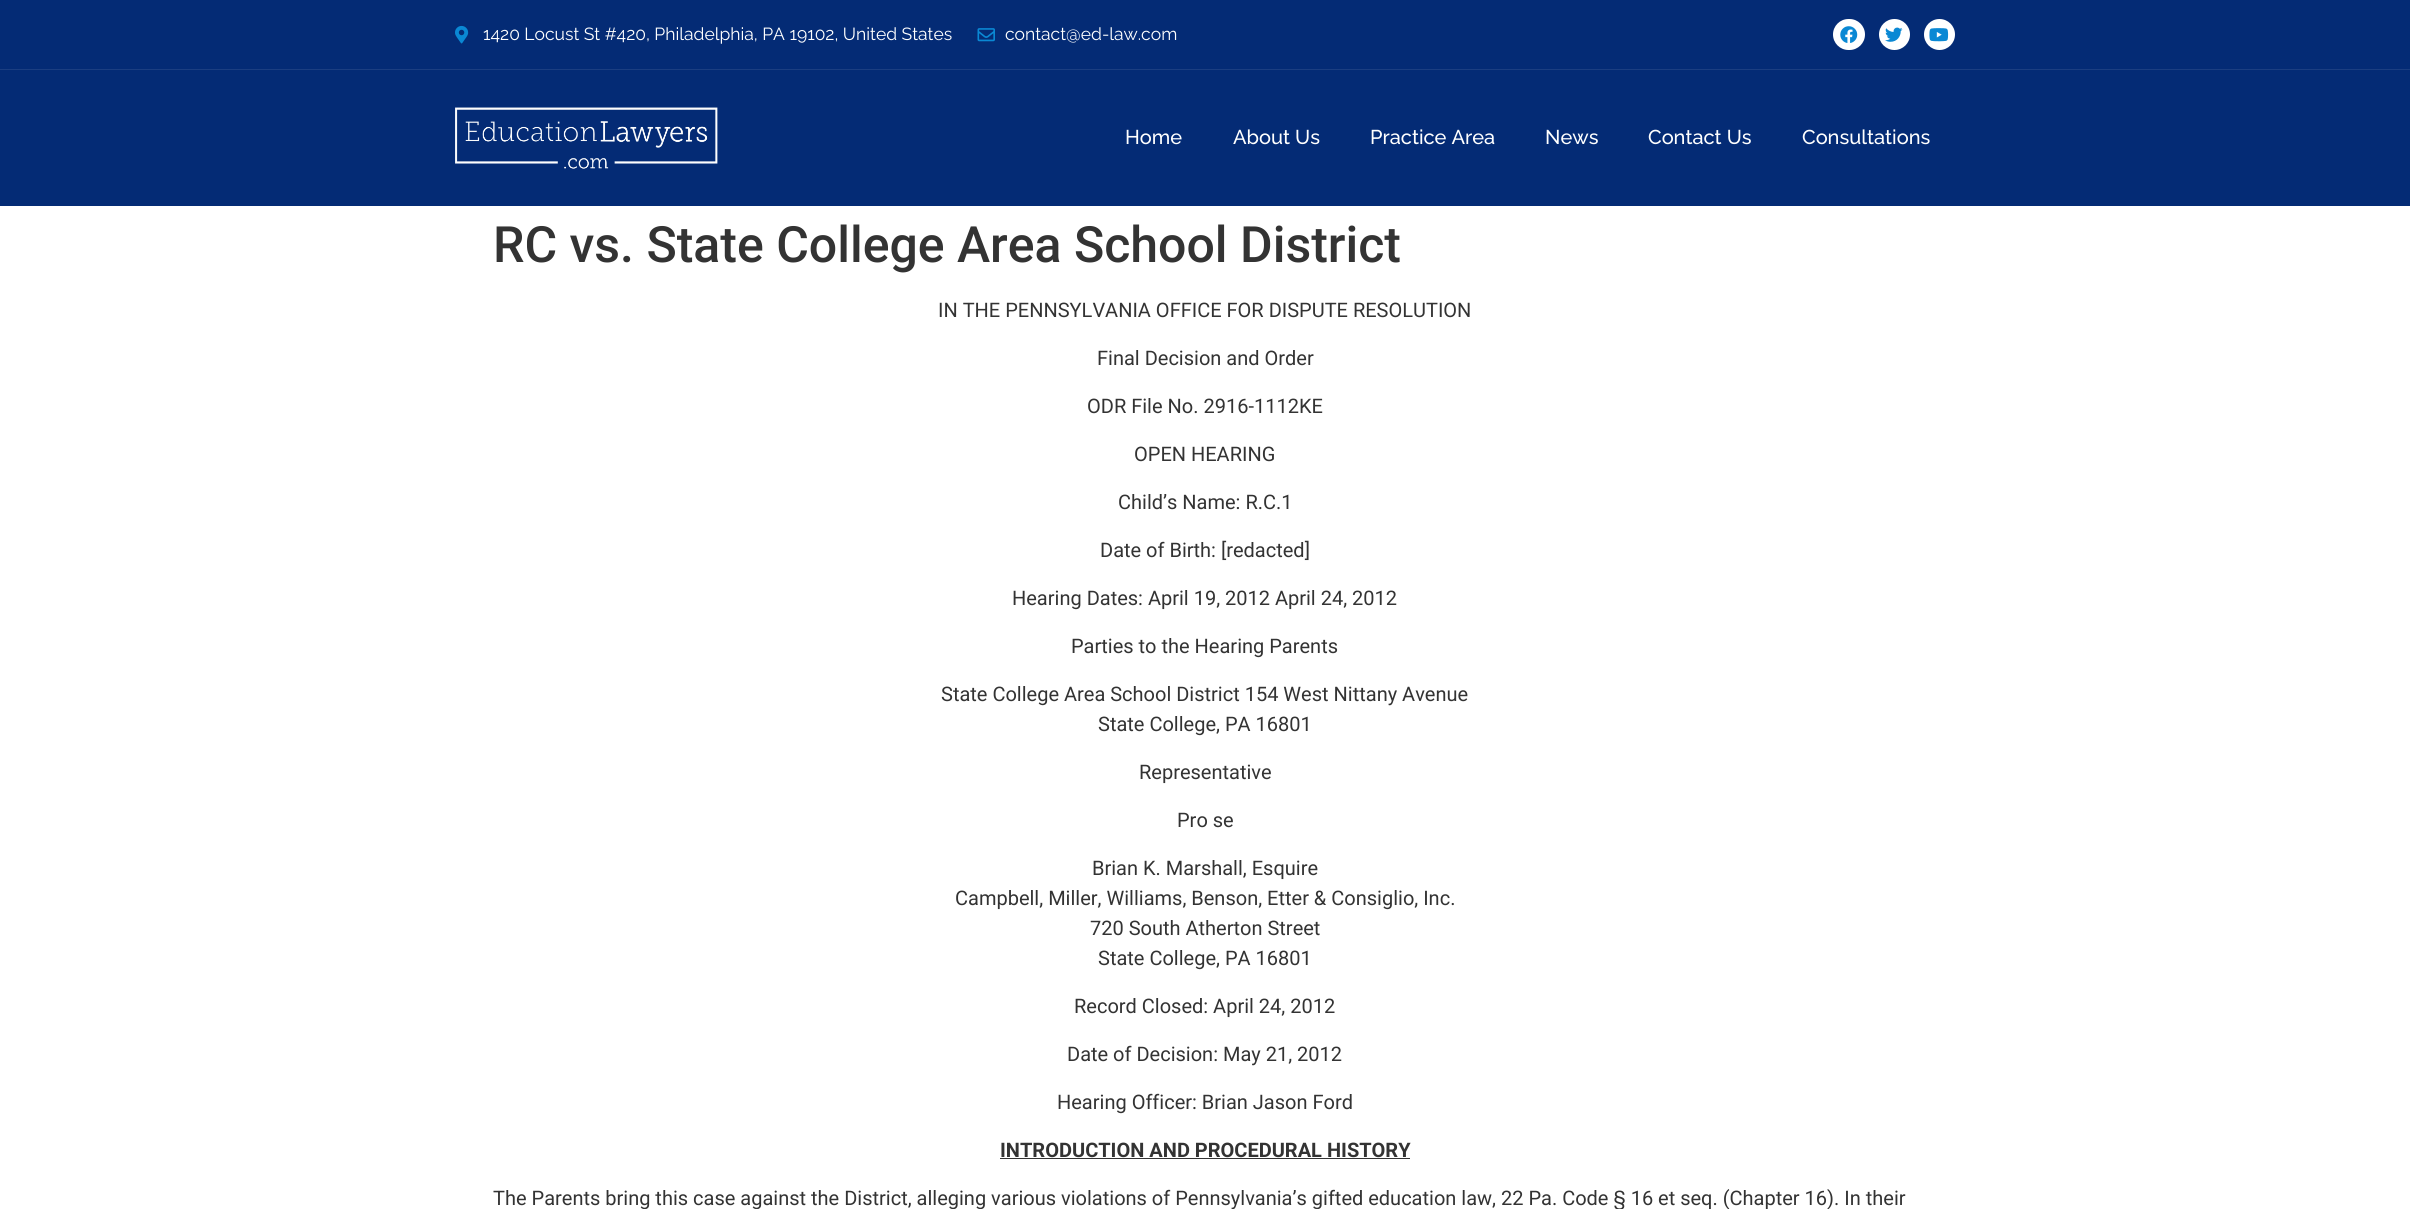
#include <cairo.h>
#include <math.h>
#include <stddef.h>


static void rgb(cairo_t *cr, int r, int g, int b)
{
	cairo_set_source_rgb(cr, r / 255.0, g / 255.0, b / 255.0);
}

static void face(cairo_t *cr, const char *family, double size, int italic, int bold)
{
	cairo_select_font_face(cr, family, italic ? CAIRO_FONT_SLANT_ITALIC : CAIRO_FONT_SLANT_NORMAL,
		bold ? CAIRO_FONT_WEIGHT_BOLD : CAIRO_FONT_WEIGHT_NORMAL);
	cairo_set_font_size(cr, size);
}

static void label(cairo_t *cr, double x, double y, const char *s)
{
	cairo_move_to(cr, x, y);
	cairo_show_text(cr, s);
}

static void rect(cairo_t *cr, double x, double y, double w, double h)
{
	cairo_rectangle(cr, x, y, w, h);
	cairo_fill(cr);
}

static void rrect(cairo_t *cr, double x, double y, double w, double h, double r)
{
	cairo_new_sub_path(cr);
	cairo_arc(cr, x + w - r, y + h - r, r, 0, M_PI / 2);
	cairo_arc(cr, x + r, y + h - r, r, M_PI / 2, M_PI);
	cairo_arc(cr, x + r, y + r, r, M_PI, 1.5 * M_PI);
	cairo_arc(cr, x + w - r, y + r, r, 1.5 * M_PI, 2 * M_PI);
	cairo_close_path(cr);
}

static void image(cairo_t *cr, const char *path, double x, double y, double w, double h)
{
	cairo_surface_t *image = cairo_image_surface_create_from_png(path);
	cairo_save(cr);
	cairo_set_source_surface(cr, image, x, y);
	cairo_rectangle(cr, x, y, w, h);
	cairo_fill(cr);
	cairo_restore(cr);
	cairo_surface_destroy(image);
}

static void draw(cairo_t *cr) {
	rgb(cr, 255, 255, 255);
	cairo_paint(cr);
	rgb(cr, 4, 43, 117);
	rect(cr, 0, 0, 2410, 69);
	rgb(cr, 27, 62, 129);
	rect(cr, 0, 69, 2410, 1);
	image(cr, "image0.png", 455, 25, 14, 19);
	face(cr, "Raleway", 17.5, 0, 0);
	rgb(cr, 255, 255, 255);
	label(cr, 483, 40, "1420 Locust St #420, Philadelphia, PA 19102, United States");
	image(cr, "image1.png", 977, 28, 18, 14);
	label(cr, 1005, 40, "contact@ed-law.com");
	rrect(cr, 1833, 19, 32, 31, 15.5);
	cairo_fill(cr);
	image(cr, "image2.png", 1840, 26, 18, 17);
	cairo_arc(cr, 1894.5, 34.5, 15.5, 0, 2 * M_PI);
	cairo_fill(cr);
	image(cr, "image3.png", 1885, 27, 18, 15);
	cairo_arc(cr, 1939.5, 34.5, 15.5, 0, 2 * M_PI);
	cairo_fill(cr);
	image(cr, "image4.png", 1929, 28, 20, 14);
	rgb(cr, 4, 43, 117);
	rect(cr, 0, 70, 2410, 136);
	image(cr, "image5.png", 455, 107, 263, 62);
	face(cr, "Raleway Medium", 20, 0, 0);
	rgb(cr, 255, 255, 255);
	label(cr, 1125, 144, "Home");
	label(cr, 1233, 144, "About Us");
	label(cr, 1370, 144, "Practice Area");
	label(cr, 1545, 144, "News");
	label(cr, 1648, 144, "Contact Us");
	label(cr, 1802, 144, "Consultations");
	face(cr, "Roboto Medium", 50, 0, 0);
	rgb(cr, 51, 51, 51);
	label(cr, 493, 262, "RC vs. State College Area School District");
	face(cr, "Roboto", 20, 0, 0);
	label(cr, 938, 317, "IN THE PENNSYLVANIA OFFICE FOR DISPUTE RESOLUTION");
	label(cr, 1097, 365, "Final Decision and Order");
	label(cr, 1087, 413, "ODR File No. 2916-1112KE");
	label(cr, 1134, 461, "OPEN HEARING");
	label(cr, 1118, 509, "Child’s Name: R.C.1");
	label(cr, 1100, 557, "Date of Birth: [redacted]");
	label(cr, 1012, 605, "Hearing Dates: April 19, 2012 April 24, 2012");
	label(cr, 1071, 653, "Parties to the Hearing Parents");
	label(cr, 941, 701, "State College Area School District 154 West Nittany Avenue");
	label(cr, 1098, 731, "State College, PA 16801");
	label(cr, 1139, 779, "Representative");
	label(cr, 1177, 827, "Pro se");
	label(cr, 1092, 875, "Brian K. Marshall, Esquire");
	label(cr, 955, 905, "Campbell, Miller, Williams, Benson, Etter & Consiglio, Inc.");
	label(cr, 1090, 935, "720 South Atherton Street");
	label(cr, 1098, 965, "State College, PA 16801");
	label(cr, 1074, 1013, "Record Closed: April 24, 2012");
	label(cr, 1067, 1061, "Date of Decision: May 21, 2012");
	label(cr, 1057, 1109, "Hearing Officer: Brian Jason Ford");
	face(cr, "Roboto", 20, 0, 1);
	label(cr, 1000, 1157, "INTRODUCTION AND PROCEDURAL HISTORY");
	rect(cr, 1000, 1158, 410, 1);
	face(cr, "Roboto", 20, 0, 0);
	label(cr, 493, 1205, "The Parents bring this case against the District, alleging various violations of Pennsylvania’s gifted education law, 22 Pa. Code § 16 et seq. (Chapter 16). In their");
}

int main(void) {
	cairo_surface_t *surface = cairo_image_surface_create(CAIRO_FORMAT_RGB24, 2410, 1209);
	cairo_t *cr = cairo_create(surface);
	cairo_font_options_t *options = cairo_font_options_create();
	cairo_font_options_set_hint_metrics(options, CAIRO_HINT_METRICS_OFF);
	cairo_font_options_set_hint_style(options, CAIRO_HINT_STYLE_NONE);
	cairo_set_font_options(cr, options);
	cairo_set_miter_limit(cr, 4);
	draw(cr);
	cairo_surface_write_to_png(surface, "render.png");
	cairo_font_options_destroy(options);
	cairo_destroy(cr);
	cairo_surface_destroy(surface);
	return 0;
}
